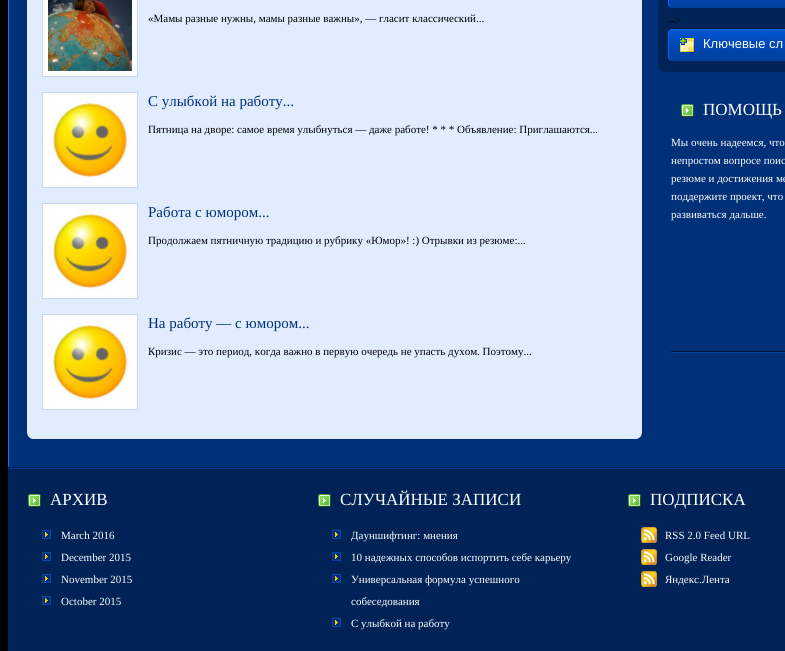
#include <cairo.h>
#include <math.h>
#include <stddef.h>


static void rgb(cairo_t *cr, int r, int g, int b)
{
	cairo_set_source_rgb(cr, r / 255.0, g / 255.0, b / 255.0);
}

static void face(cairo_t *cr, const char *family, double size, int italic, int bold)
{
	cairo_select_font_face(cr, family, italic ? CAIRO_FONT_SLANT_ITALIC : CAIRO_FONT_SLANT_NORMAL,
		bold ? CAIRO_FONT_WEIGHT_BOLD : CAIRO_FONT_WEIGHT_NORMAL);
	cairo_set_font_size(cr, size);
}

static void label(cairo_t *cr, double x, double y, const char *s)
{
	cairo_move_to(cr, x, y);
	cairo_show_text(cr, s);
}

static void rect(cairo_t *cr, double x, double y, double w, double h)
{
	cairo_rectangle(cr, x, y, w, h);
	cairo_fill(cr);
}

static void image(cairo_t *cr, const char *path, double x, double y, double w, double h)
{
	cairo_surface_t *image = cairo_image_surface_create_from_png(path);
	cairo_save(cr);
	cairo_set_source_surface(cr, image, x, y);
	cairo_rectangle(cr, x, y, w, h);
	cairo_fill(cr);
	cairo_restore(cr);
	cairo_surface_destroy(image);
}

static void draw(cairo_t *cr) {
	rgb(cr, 0, 0, 0);
	cairo_paint(cr);
	rgb(cr, 0, 48, 120);
	rect(cr, 9, 0, 776, 467);
	rgb(cr, 32, 111, 229);
	rect(cr, 8, 0, 1, 467);
	rgb(cr, 225, 237, 255);
	rect(cr, 27, 0, 615, 433);
	rgb(cr, 255, 255, 255);
	cairo_rectangle(cr, 42.5, -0.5, 95, 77);
	cairo_fill_preserve(cr);
	rgb(cr, 197, 215, 242);
	cairo_set_line_width(cr, 1);
	cairo_stroke(cr);
	image(cr, "image0.png", 48, 0, 84, 71);
	face(cr, "Liberation Serif", 11, 0, 0);
	rgb(cr, 0, 0, 0);
	label(cr, 148, 22, "«Мамы разные нужны, мамы разные важны», — гласит классический...");
	rgb(cr, 255, 255, 255);
	cairo_rectangle(cr, 42.5, 92.5, 95, 95);
	cairo_fill_preserve(cr);
	rgb(cr, 197, 215, 242);
	cairo_stroke(cr);
	image(cr, "image1.png", 48, 98, 84, 81);
	face(cr, "Liberation Serif", 15, 0, 0);
	rgb(cr, 0, 48, 120);
	label(cr, 148, 106, "С улыбкой на работу...");
	face(cr, "Liberation Serif", 11, 0, 0);
	rgb(cr, 0, 0, 0);
	label(cr, 148, 133, "Пятница на дворе: самое время улыбнуться — даже работе! * * * Объявление: Приглашаются...");
	rgb(cr, 255, 255, 255);
	cairo_rectangle(cr, 42.5, 203.5, 95, 95);
	cairo_fill_preserve(cr);
	rgb(cr, 197, 215, 242);
	cairo_stroke(cr);
	image(cr, "image1.png", 48, 209, 84, 81);
	face(cr, "Liberation Serif", 15, 0, 0);
	rgb(cr, 0, 48, 120);
	label(cr, 148, 217, "Работа с юмором...");
	face(cr, "Liberation Serif", 11, 0, 0);
	rgb(cr, 0, 0, 0);
	label(cr, 148, 244, "Продолжаем пятничную традицию и рубрику «Юмор»! :) Отрывки из резюме:...");
	rgb(cr, 255, 255, 255);
	cairo_rectangle(cr, 42.5, 314.5, 95, 95);
	cairo_fill_preserve(cr);
	rgb(cr, 197, 215, 242);
	cairo_stroke(cr);
	image(cr, "image2.png", 48, 320, 84, 81);
	face(cr, "Liberation Serif", 15, 0, 0);
	rgb(cr, 0, 48, 120);
	label(cr, 148, 328, "На работу — с юмором...");
	face(cr, "Liberation Serif", 11, 0, 0);
	rgb(cr, 0, 0, 0);
	label(cr, 148, 355, "Кризис — это период, когда важно в первую очередь не упасть духом. Поэтому...");
	image(cr, "image3.png", 27, 433, 615, 6);
	rgb(cr, 0, 35, 87);
	rect(cr, 658, 0, 127, 66);
	image(cr, "image4.png", 668, 0, 117, 8);
	rgb(cr, 0, 0, 0);
	label(cr, 668, 24, "-->");
	image(cr, "image5.png", 668, 29, 117, 32);
	face(cr, "Liberation Sans", 13, 0, 0);
	rgb(cr, 255, 255, 255);
	label(cr, 703, 48, "Ключевые сл");
	image(cr, "image6.png", 658, 66, 127, 6);
	image(cr, "image7.png", 671, 351, 114, 2);
	image(cr, "image8.png", 681, 104, 13, 13);
	face(cr, "Liberation Serif", 17, 0, 0);
	label(cr, 703, 115, "ПОМОЩЬ");
	face(cr, "Liberation Serif", 11, 0, 0);
	label(cr, 671, 146, "Мы очень надеемся, что");
	label(cr, 671, 164, "непростом вопросе поис");
	label(cr, 671, 182, "резюме и достижения ме");
	label(cr, 671, 200, "поддержите проект, что");
	label(cr, 671, 218, "развиваться дальше.");
	rgb(cr, 0, 35, 87);
	rect(cr, 8, 469, 777, 182);
	image(cr, "image9.png", 8, 467, 777, 2);
	image(cr, "image8.png", 28, 494, 13, 13);
	face(cr, "Liberation Serif", 17, 0, 0);
	rgb(cr, 255, 255, 255);
	label(cr, 50, 505, "АРХИВ");
	image(cr, "image10.png", 42, 530, 9, 9);
	face(cr, "Liberation Serif", 11, 0, 0);
	label(cr, 61, 539, "March 2016");
	image(cr, "image10.png", 42, 552, 9, 9);
	label(cr, 61, 561, "December 2015");
	image(cr, "image10.png", 42, 574, 9, 9);
	label(cr, 61, 583, "November 2015");
	image(cr, "image10.png", 42, 596, 9, 9);
	label(cr, 61, 605, "October 2015");
	image(cr, "image8.png", 318, 494, 13, 13);
	face(cr, "Liberation Serif", 17, 0, 0);
	label(cr, 340, 505, "СЛУЧАЙНЫЕ ЗАПИСИ");
	image(cr, "image10.png", 332, 530, 9, 9);
	face(cr, "Liberation Serif", 11, 0, 0);
	label(cr, 351, 539, "Дауншифтинг: мнения");
	image(cr, "image10.png", 332, 552, 9, 9);
	label(cr, 351, 561, "10 надежных способов испортить себе карьеру");
	image(cr, "image10.png", 332, 574, 9, 9);
	label(cr, 351, 583, "Универсальная формула успешного");
	label(cr, 351, 605, "собеседования");
	image(cr, "image10.png", 332, 618, 9, 9);
	label(cr, 351, 627, "С улыбкой на работу");
	image(cr, "image8.png", 628, 494, 13, 13);
	face(cr, "Liberation Serif", 17, 0, 0);
	label(cr, 650, 505, "ПОДПИСКА");
	image(cr, "image11.png", 641, 527, 16, 16);
	face(cr, "Liberation Serif", 11, 0, 0);
	label(cr, 665, 539, "RSS 2.0 Feed URL");
	image(cr, "image11.png", 641, 549, 16, 16);
	label(cr, 665, 561, "Google Reader");
	image(cr, "image11.png", 641, 571, 16, 16);
	label(cr, 665, 583, "Яндекс.Лента");
}

int main(void) {
	cairo_surface_t *surface = cairo_image_surface_create(CAIRO_FORMAT_RGB24, 785, 651);
	cairo_t *cr = cairo_create(surface);
	cairo_font_options_t *options = cairo_font_options_create();
	cairo_font_options_set_hint_metrics(options, CAIRO_HINT_METRICS_OFF);
	cairo_font_options_set_hint_style(options, CAIRO_HINT_STYLE_NONE);
	cairo_set_font_options(cr, options);
	cairo_set_miter_limit(cr, 4);
	draw(cr);
	cairo_surface_write_to_png(surface, "render.png");
	cairo_font_options_destroy(options);
	cairo_destroy(cr);
	cairo_surface_destroy(surface);
	return 0;
}
